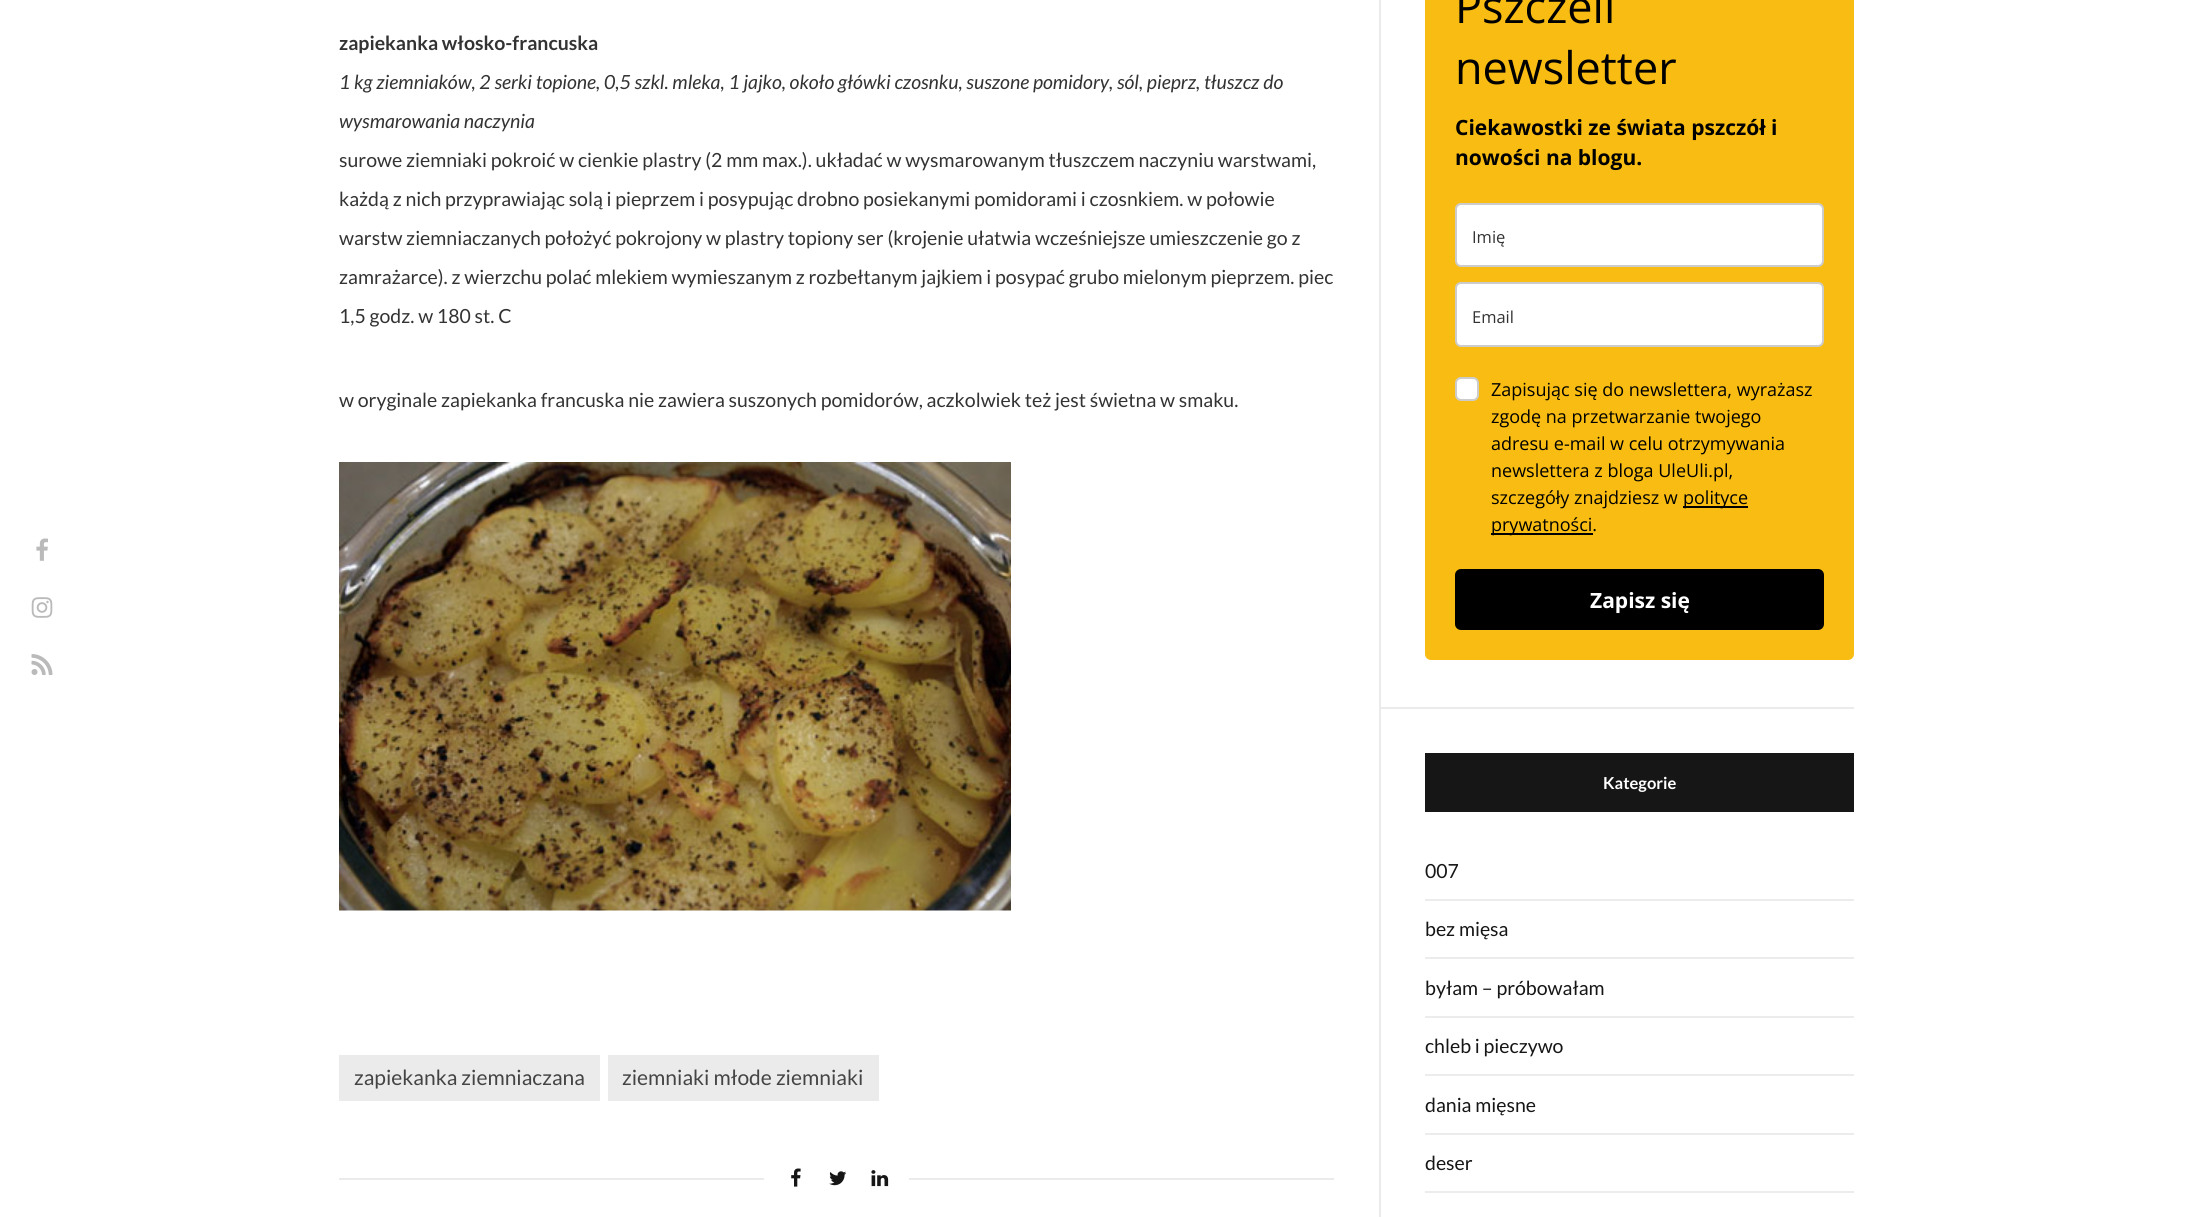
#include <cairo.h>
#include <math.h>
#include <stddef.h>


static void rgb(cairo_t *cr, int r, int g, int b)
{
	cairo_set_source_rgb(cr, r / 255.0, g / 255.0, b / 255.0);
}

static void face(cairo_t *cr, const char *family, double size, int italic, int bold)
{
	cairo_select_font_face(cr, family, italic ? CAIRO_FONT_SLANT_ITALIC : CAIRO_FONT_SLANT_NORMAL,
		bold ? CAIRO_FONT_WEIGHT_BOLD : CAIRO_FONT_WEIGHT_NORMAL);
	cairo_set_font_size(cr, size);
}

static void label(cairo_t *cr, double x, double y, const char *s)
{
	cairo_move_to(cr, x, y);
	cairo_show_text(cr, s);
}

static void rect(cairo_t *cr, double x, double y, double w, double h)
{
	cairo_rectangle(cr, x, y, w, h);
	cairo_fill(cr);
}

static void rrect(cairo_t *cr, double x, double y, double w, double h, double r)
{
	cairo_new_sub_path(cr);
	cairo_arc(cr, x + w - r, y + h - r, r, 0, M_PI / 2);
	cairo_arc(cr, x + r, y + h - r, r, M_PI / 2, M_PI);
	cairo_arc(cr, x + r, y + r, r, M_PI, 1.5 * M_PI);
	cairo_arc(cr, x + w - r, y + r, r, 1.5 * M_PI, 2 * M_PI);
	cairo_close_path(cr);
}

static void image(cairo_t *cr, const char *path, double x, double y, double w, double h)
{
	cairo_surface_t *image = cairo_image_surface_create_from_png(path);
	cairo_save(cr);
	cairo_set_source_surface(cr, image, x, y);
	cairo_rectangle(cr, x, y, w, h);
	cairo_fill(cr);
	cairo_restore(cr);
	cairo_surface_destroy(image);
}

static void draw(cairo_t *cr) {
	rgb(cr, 255, 255, 255);
	cairo_paint(cr);
	image(cr, "image0.png", 36, 538, 12, 23);
	image(cr, "image1.png", 31, 597, 22, 21);
	image(cr, "image2.png", 31, 654, 22, 21);
	face(cr, "Lato", 19.5, 0, 1);
	rgb(cr, 51, 51, 51);
	label(cr, 339, 50, "zapiekanka włosko-francuska");
	face(cr, "Lato", 19.5, 1, 0);
	label(cr, 339, 89, "1 kg ziemniaków, 2 serki topione, 0,5 szkl. mleka, 1 jajko, około główki czosnku, suszone pomidory, sól, pieprz, tłuszcz do");
	label(cr, 339, 128, "wysmarowania naczynia");
	face(cr, "Lato", 19.5, 0, 0);
	label(cr, 339, 167, "surowe ziemniaki pokroić w cienkie plastry (2 mm max.). układać w wysmarowanym tłuszczem naczyniu warstwami,");
	label(cr, 339, 206, "każdą z nich przyprawiając solą i pieprzem i posypując drobno posiekanymi pomidorami i czosnkiem. w połowie");
	label(cr, 339, 245, "warstw ziemniaczanych położyć pokrojony w plastry topiony ser (krojenie ułatwia wcześniejsze umieszczenie go z");
	label(cr, 339, 284, "zamrażarce). z wierzchu polać mlekiem wymieszanym z rozbełtanym jajkiem i posypać grubo mielonym pieprzem. piec");
	label(cr, 339, 323, "1,5 godz. w 180 st. C");
	label(cr, 339, 407, "w oryginale zapiekanka francuska nie zawiera suszonych pomidorów, aczkolwiek też jest świetna w smaku.");
	image(cr, "image3.png", 339, 462, 672, 449);
	rgb(cr, 235, 235, 235);
	rect(cr, 339, 1055, 261, 46);
	face(cr, "Lato", 21, 0, 0);
	rgb(cr, 68, 68, 68);
	label(cr, 354, 1085, "zapiekanka ziemniaczana");
	rgb(cr, 235, 235, 235);
	rect(cr, 608, 1055, 271, 46);
	rgb(cr, 68, 68, 68);
	label(cr, 622, 1085, "ziemniaki młode ziemniaki");
	rgb(cr, 235, 235, 235);
	rect(cr, 339, 1178, 995, 2);
	rgb(cr, 255, 255, 255);
	rect(cr, 764, 1178, 145, 2);
	image(cr, "image4.png", 791, 1168, 10, 19);
	image(cr, "image5.png", 829, 1171, 18, 15);
	image(cr, "image6.png", 871, 1170, 18, 17);
	rgb(cr, 235, 235, 235);
	rect(cr, 1379, 0, 2, 1217);
	rect(cr, 1380, 707, 474, 2);
	rgb(cr, 248, 188, 18);
	rrect(cr, 1425, -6, 429, 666, 6);
	cairo_fill(cr);
	face(cr, "Open Sans", 45, 0, 0);
	rgb(cr, 0, 0, 0);
	label(cr, 1455, 23, "Pszczeli");
	label(cr, 1455, 84, "newsletter");
	face(cr, "Open Sans", 21, 0, 1);
	label(cr, 1455, 135, "Ciekawostki ze świata pszczół i");
	label(cr, 1455, 165, "nowości na blogu.");
	rgb(cr, 255, 255, 255);
	rrect(cr, 1456, 204, 367, 62, 5);
	cairo_fill_preserve(cr);
	rgb(cr, 204, 204, 204);
	cairo_stroke(cr);
	face(cr, "Open Sans", 16.5, 0, 0);
	rgb(cr, 51, 51, 51);
	label(cr, 1472, 243, "Imię");
	rgb(cr, 255, 255, 255);
	rrect(cr, 1456, 283, 367, 63, 5);
	cairo_fill_preserve(cr);
	rgb(cr, 204, 204, 204);
	cairo_stroke(cr);
	rgb(cr, 51, 51, 51);
	label(cr, 1472, 323, "Email");
	rgb(cr, 255, 255, 255);
	rrect(cr, 1456, 378, 22, 22, 5);
	cairo_fill_preserve(cr);
	rgb(cr, 204, 204, 204);
	cairo_stroke(cr);
	face(cr, "Open Sans", 18, 0, 0);
	rgb(cr, 0, 0, 0);
	label(cr, 1491, 396, "Zapisując się do newslettera, wyrażasz");
	label(cr, 1491, 423, "zgodę na przetwarzanie twojego");
	label(cr, 1491, 450, "adresu e-mail w celu otrzymywania");
	label(cr, 1491, 477, "newslettera z bloga UleUli.pl,");
	label(cr, 1491, 504, "szczegóły znajdziesz w");
	rect(cr, 1683, 506, 65, 2);
	label(cr, 1683, 504, "polityce");
	rect(cr, 1491, 533, 102, 2);
	label(cr, 1491, 531, "prywatności.");
	rrect(cr, 1455, 569, 369, 61, 6);
	cairo_fill(cr);
	face(cr, "Open Sans", 21, 0, 1);
	rgb(cr, 255, 255, 255);
	label(cr, 1590, 608, "Zapisz się");
	rgb(cr, 22, 22, 22);
	rect(cr, 1425, 753, 429, 59);
	face(cr, "Lato", 16.5, 0, 1);
	rgb(cr, 255, 255, 255);
	label(cr, 1603, 789, "Kategorie");
	rgb(cr, 236, 236, 236);
	rect(cr, 1425, 899, 429, 2);
	face(cr, "Lato", 19.5, 0, 0);
	rgb(cr, 22, 22, 22);
	label(cr, 1425, 878, "007");
	rgb(cr, 236, 236, 236);
	rect(cr, 1425, 957, 429, 2);
	rgb(cr, 22, 22, 22);
	label(cr, 1425, 936, "bez mięsa");
	rgb(cr, 236, 236, 236);
	rect(cr, 1425, 1016, 429, 2);
	rgb(cr, 22, 22, 22);
	label(cr, 1425, 995, "byłam – próbowałam");
	rgb(cr, 236, 236, 236);
	rect(cr, 1425, 1074, 429, 2);
	rgb(cr, 22, 22, 22);
	label(cr, 1425, 1053, "chleb i pieczywo");
	rgb(cr, 236, 236, 236);
	rect(cr, 1425, 1133, 429, 2);
	rgb(cr, 22, 22, 22);
	label(cr, 1425, 1112, "dania mięsne");
	rgb(cr, 236, 236, 236);
	rect(cr, 1425, 1191, 429, 2);
	rgb(cr, 22, 22, 22);
	label(cr, 1425, 1170, "deser");
}

int main(void) {
	cairo_surface_t *surface = cairo_image_surface_create(CAIRO_FORMAT_RGB24, 2193, 1217);
	cairo_t *cr = cairo_create(surface);
	cairo_font_options_t *options = cairo_font_options_create();
	cairo_font_options_set_hint_metrics(options, CAIRO_HINT_METRICS_OFF);
	cairo_font_options_set_hint_style(options, CAIRO_HINT_STYLE_NONE);
	cairo_set_font_options(cr, options);
	cairo_set_miter_limit(cr, 4);
	draw(cr);
	cairo_surface_write_to_png(surface, "render.png");
	cairo_font_options_destroy(options);
	cairo_destroy(cr);
	cairo_surface_destroy(surface);
	return 0;
}
